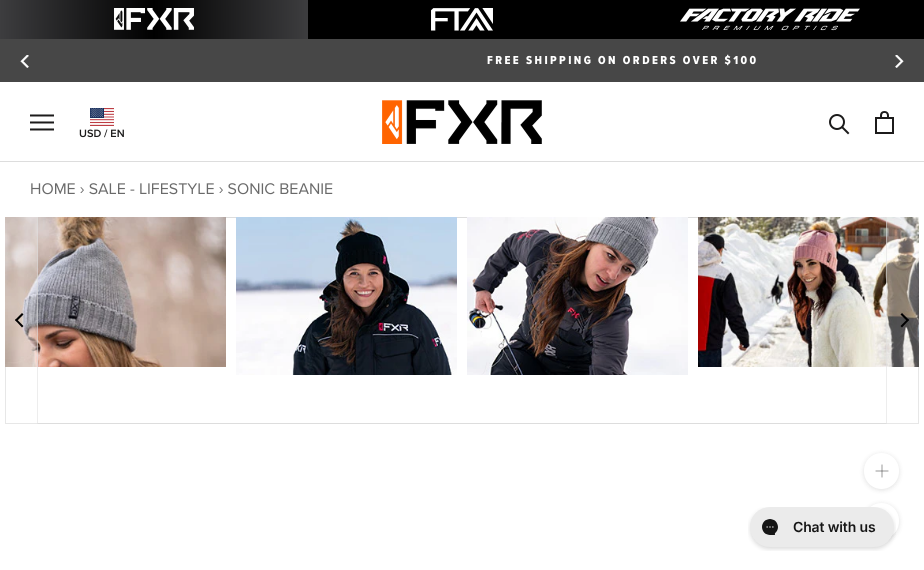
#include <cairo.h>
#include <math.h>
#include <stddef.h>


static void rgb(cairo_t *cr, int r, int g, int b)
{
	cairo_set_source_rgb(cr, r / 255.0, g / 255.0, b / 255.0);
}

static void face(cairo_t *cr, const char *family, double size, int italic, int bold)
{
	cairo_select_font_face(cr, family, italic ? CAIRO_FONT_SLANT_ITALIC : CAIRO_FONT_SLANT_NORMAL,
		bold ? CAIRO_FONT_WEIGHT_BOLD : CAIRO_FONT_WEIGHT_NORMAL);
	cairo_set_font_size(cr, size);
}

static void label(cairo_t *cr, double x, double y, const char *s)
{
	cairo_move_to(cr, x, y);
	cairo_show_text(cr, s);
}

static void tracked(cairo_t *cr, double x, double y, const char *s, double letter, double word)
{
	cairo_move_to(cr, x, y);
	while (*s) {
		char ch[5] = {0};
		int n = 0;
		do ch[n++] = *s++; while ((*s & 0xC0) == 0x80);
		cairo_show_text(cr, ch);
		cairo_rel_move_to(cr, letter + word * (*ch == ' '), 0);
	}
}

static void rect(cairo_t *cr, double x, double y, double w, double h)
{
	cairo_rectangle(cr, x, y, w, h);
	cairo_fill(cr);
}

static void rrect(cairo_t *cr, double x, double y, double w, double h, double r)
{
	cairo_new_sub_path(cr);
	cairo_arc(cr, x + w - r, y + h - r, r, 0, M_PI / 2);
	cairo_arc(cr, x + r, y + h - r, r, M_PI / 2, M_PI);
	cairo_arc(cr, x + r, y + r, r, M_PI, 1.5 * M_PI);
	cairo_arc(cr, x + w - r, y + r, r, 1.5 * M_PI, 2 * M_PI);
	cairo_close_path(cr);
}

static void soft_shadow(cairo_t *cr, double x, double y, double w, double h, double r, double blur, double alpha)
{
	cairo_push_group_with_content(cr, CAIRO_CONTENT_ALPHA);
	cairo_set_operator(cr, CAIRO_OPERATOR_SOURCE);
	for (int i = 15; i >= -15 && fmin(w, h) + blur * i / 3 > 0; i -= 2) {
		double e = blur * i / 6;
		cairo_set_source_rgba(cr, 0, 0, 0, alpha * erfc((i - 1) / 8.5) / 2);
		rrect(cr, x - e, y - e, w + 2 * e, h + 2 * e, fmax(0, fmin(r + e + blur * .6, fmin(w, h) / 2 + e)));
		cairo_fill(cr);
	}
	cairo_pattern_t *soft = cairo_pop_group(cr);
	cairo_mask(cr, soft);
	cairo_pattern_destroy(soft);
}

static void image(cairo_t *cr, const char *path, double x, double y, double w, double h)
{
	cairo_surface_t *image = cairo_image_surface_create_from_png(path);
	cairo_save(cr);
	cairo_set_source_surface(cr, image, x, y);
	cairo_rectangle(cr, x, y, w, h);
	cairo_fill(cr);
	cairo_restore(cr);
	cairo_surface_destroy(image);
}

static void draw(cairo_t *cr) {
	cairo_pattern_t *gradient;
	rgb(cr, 255, 255, 255);
	cairo_paint(cr);
	gradient = cairo_pattern_create_linear(0, 20, 308, 19);
	cairo_pattern_add_color_stop_rgba(gradient, 0, 0.239, 0.239, 0.247, 1);
	cairo_pattern_add_color_stop_rgba(gradient, 0.5, 0, 0, 0, 1);
	cairo_pattern_add_color_stop_rgba(gradient, 1, 0.239, 0.239, 0.247, 1);
	cairo_set_source(cr, gradient);
	cairo_pattern_destroy(gradient);
	rect(cr, 0, 0, 308, 39);
	image(cr, "image0.png", 114, 8, 80, 22);
	rgb(cr, 0, 0, 0);
	rect(cr, 308, 0, 616, 39);
	image(cr, "image1.png", 431, 8, 62, 23);
	image(cr, "image2.png", 680, 8, 180, 23);
	rgb(cr, 71, 71, 71);
	rect(cr, 0, 39, 924, 43);
	image(cr, "image3.png", 20, 55, 9, 13);
	face(cr, "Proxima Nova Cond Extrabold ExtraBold", 12, 0, 0);
	rgb(cr, 255, 255, 255);
	tracked(cr, 487, 64, "FREE SHIPPING ON ORDERS OVER $100", 2.4, 0);
	image(cr, "image4.png", 895, 55, 9, 13);
	rgb(cr, 221, 221, 221);
	rect(cr, 0, 161, 924, 1);
	image(cr, "image5.png", 30, 114, 24, 17);
	image(cr, "image6.png", 90, 108, 24, 18);
	face(cr, "Proxima Nova SemiBold", 11, 0, 0);
	rgb(cr, 28, 27, 27);
	label(cr, 79, 137, "USD / EN");
	image(cr, "image7.png", 382, 100, 160, 44);
	cairo_new_path(cr);
	cairo_move_to(cr, 848, 133);
	cairo_line_to(cr, 842.5, 127.5);
	cairo_set_line_cap(cr, CAIRO_LINE_CAP_SQUARE);
	cairo_stroke(cr);
	cairo_arc(cr, 837, 122, 7, 0, 2 * M_PI);
	cairo_set_line_cap(cr, CAIRO_LINE_CAP_BUTT);
	cairo_stroke(cr);
	image(cr, "image8.png", 875, 111, 19, 23);
	face(cr, "Proxima Nova", 16, 0, 0);
	rgb(cr, 106, 106, 106);
	label(cr, 30, 194, "HOME › SALE - LIFESTYLE › SONIC BEANIE");
	cairo_rectangle(cr, 5.5, 217.5, 913, 206);
	rgb(cr, 221, 221, 221);
	cairo_set_line_width(cr, 1);
	cairo_stroke(cr);
	image(cr, "image9.png", 5, 217, 221, 150);
	image(cr, "image10.png", 236, 217, 221, 158);
	image(cr, "image11.png", 467, 217, 221, 158);
	image(cr, "image12.png", 698, 217, 221, 150);
	cairo_set_source_rgba(cr, 1, 1, 1, 0.3);
	rect(cr, 5, 217, 33, 207);
	cairo_set_source_rgba(cr, 0.867, 0.867, 0.867, 0.5);
	rect(cr, 37, 217, 1, 207);
	rgb(cr, 0, 0, 0);
	cairo_new_path(cr);
	cairo_move_to(cr, 16.5, 319);
	cairo_line_to(cr, 23.5, 326);
	cairo_line_to(cr, 22, 327.5);
	cairo_line_to(cr, 15, 320);
	cairo_close_path(cr);
	cairo_fill(cr);
	cairo_new_path(cr);
	cairo_move_to(cr, 22, 313);
	cairo_line_to(cr, 23.5, 314.5);
	cairo_line_to(cr, 16.5, 321.5);
	cairo_line_to(cr, 15, 320);
	cairo_close_path(cr);
	cairo_fill(cr);
	cairo_set_source_rgba(cr, 1, 1, 1, 0.3);
	rect(cr, 886, 217, 33, 207);
	cairo_set_source_rgba(cr, 0.867, 0.867, 0.867, 0.5);
	rect(cr, 886, 217, 1, 207);
	rgb(cr, 0, 0, 0);
	cairo_new_path(cr);
	cairo_move_to(cr, 907.5, 321.5);
	cairo_line_to(cr, 900.5, 314.5);
	cairo_line_to(cr, 902, 313);
	cairo_line_to(cr, 909, 320);
	cairo_close_path(cr);
	cairo_fill(cr);
	cairo_new_path(cr);
	cairo_move_to(cr, 902, 327.5);
	cairo_line_to(cr, 900.5, 326);
	cairo_line_to(cr, 907.5, 319);
	cairo_line_to(cr, 909, 320);
	cairo_close_path(cr);
	cairo_fill(cr);
	rgb(cr, 54, 54, 54);
	soft_shadow(cr, 864, 454, 35, 36, 17.5, 2.5, 0.15);
	rgb(cr, 255, 255, 255);
	rrect(cr, 864, 453, 35, 36, 17.5);
	cairo_fill(cr);
	cairo_new_path(cr);
	cairo_move_to(cr, 882, 465);
	cairo_line_to(cr, 882, 477);
	rgb(cr, 142, 141, 141);
	cairo_set_line_width(cr, 0.9);
	cairo_set_line_cap(cr, CAIRO_LINE_CAP_SQUARE);
	cairo_stroke(cr);
	cairo_new_path(cr);
	cairo_move_to(cr, 876, 471);
	cairo_line_to(cr, 888, 471);
	cairo_set_source_rgba(cr, 0.11, 0.106, 0.106, 0.5);
	cairo_stroke(cr);
	rgb(cr, 54, 54, 54);
	soft_shadow(cr, 864, 504, 35, 36, 17.5, 2.5, 0.15);
	rgb(cr, 255, 255, 255);
	rrect(cr, 864, 503, 35, 36, 17.5);
	cairo_fill(cr);
	image(cr, "image13.png", 748, 507, 148, 44);
}

int main(void) {
	cairo_surface_t *surface = cairo_image_surface_create(CAIRO_FORMAT_RGB24, 924, 570);
	cairo_t *cr = cairo_create(surface);
	cairo_font_options_t *options = cairo_font_options_create();
	cairo_font_options_set_hint_metrics(options, CAIRO_HINT_METRICS_OFF);
	cairo_font_options_set_hint_style(options, CAIRO_HINT_STYLE_NONE);
	cairo_set_font_options(cr, options);
	cairo_set_miter_limit(cr, 4);
	draw(cr);
	cairo_surface_write_to_png(surface, "render.png");
	cairo_font_options_destroy(options);
	cairo_destroy(cr);
	cairo_surface_destroy(surface);
	return 0;
}
